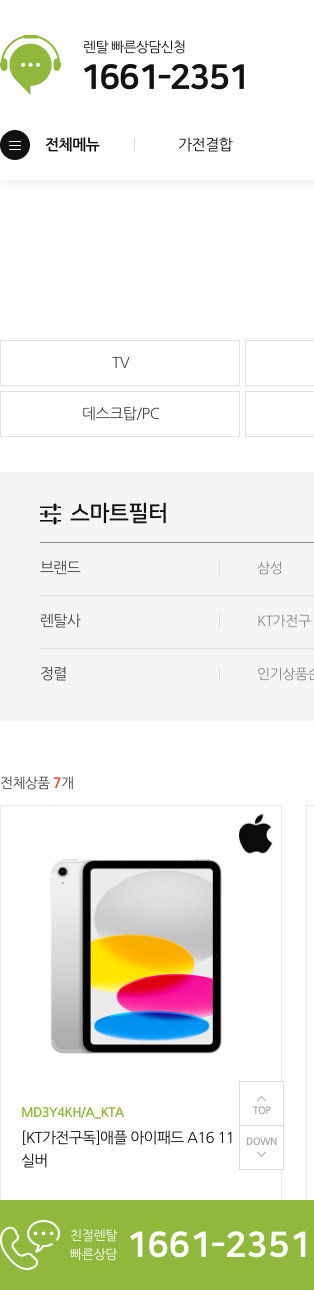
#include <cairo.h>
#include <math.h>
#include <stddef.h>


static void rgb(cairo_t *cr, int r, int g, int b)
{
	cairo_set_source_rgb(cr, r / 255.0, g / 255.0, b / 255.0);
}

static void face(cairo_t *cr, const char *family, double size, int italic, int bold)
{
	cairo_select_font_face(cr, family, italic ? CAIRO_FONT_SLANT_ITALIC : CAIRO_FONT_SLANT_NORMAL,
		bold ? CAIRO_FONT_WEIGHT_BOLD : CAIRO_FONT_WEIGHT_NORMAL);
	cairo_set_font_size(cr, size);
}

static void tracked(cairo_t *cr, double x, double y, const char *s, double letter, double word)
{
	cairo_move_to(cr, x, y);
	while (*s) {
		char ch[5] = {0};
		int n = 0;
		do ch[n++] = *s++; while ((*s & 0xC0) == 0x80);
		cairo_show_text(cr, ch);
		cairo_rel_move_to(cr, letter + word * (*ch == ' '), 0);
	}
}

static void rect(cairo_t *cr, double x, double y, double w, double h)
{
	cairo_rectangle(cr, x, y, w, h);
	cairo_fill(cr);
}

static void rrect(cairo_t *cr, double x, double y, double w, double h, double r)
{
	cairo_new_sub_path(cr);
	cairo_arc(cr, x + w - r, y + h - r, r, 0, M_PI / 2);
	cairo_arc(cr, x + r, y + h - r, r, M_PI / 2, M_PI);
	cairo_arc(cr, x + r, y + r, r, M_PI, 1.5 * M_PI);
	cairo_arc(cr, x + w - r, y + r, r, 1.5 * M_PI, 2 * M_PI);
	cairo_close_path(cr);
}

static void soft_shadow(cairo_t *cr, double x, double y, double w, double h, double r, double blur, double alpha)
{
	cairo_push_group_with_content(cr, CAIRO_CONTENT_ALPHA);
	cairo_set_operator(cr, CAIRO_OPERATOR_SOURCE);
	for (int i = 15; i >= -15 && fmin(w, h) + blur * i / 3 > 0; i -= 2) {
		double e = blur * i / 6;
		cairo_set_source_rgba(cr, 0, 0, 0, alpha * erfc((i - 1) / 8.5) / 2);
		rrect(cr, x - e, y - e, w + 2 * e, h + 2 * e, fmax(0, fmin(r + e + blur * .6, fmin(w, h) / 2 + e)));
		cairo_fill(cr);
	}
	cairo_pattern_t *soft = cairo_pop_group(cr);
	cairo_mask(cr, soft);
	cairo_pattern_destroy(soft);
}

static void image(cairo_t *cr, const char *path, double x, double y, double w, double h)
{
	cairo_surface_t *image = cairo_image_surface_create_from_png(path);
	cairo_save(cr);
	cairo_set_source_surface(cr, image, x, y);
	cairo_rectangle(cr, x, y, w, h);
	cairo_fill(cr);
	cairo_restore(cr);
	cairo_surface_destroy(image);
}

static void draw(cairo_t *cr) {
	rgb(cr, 255, 255, 255);
	cairo_paint(cr);
	cairo_save(cr);
	cairo_rectangle(cr, 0, 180, 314, 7);
	cairo_clip(cr);
	rgb(cr, 0, 0, 0);
	soft_shadow(cr, 0, 0, 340, 180, 0, 8.5, 0.1);
	cairo_restore(cr);
	image(cr, "image0.png", 0, 35, 61, 60);
	face(cr, "NanumGothic", 14, 0, 0);
	rgb(cr, 17, 17, 17);
	tracked(cr, 83, 52, "렌탈 빠른상담신청", -0.75, 0);
	face(cr, "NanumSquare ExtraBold", 34, 0, 0);
	tracked(cr, 80, 88, "1661-2351", -1.75, 0);
	cairo_new_path(cr);
	cairo_arc(cr, 15, 145, 15, 0, 2 * M_PI);
	cairo_fill(cr);
	image(cr, "image1.png", 9, 141, 12, 9);
	face(cr, "NanumGothic", 15, 0, 1);
	tracked(cr, 45, 150, "전체메뉴", -0.5, 0);
	rgb(cr, 221, 221, 221);
	rect(cr, 134, 138, 1, 14);
	face(cr, "NanumGothic", 15, 0, 0);
	rgb(cr, 17, 17, 17);
	tracked(cr, 178, 150, "가전결합", -0.5, 0);
	cairo_rectangle(cr, 0.5, 340.5, 239, 45);
	rgb(cr, 225, 225, 225);
	cairo_set_line_width(cr, 1);
	cairo_stroke(cr);
	rgb(cr, 69, 69, 69);
	tracked(cr, 112, 368, "TV", -0.5, 0);
	cairo_rectangle(cr, 245.5, 340.5, 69, 45);
	rgb(cr, 225, 225, 225);
	cairo_stroke(cr);
	cairo_rectangle(cr, 0.5, 391.5, 239, 45);
	cairo_stroke(cr);
	rgb(cr, 69, 69, 69);
	tracked(cr, 82, 419, "데스크탑/PC", -0.5, 0);
	cairo_rectangle(cr, 245.5, 391.5, 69, 45);
	rgb(cr, 225, 225, 225);
	cairo_stroke(cr);
	rgb(cr, 245, 245, 245);
	rect(cr, 0, 472, 314, 249);
	rgb(cr, 136, 136, 136);
	rect(cr, 40, 542, 274, 1);
	image(cr, "image2.png", 40, 503, 21, 22);
	face(cr, "NanumSquare", 22, 0, 1);
	rgb(cr, 17, 17, 17);
	tracked(cr, 70, 520, "스마트필터", -0.5, 0);
	rgb(cr, 225, 225, 225);
	rect(cr, 40, 595, 274, 1);
	face(cr, "NanumGothic", 15, 0, 0);
	rgb(cr, 69, 69, 69);
	tracked(cr, 40, 573, "브랜드", -0.75, 0);
	rgb(cr, 225, 225, 225);
	rect(cr, 219, 561, 1, 14);
	face(cr, "NanumGothic", 14, 0, 0);
	rgb(cr, 136, 136, 136);
	tracked(cr, 257, 573, "삼성", -0.5, 0);
	rgb(cr, 225, 225, 225);
	rect(cr, 40, 648, 274, 1);
	face(cr, "NanumGothic", 15, 0, 0);
	rgb(cr, 69, 69, 69);
	tracked(cr, 40, 626, "렌탈사", -0.75, 0);
	rgb(cr, 225, 225, 225);
	rect(cr, 219, 614, 1, 14);
	face(cr, "NanumGothic", 14, 0, 0);
	rgb(cr, 136, 136, 136);
	tracked(cr, 257, 626, "KT가전구", -0.5, 0);
	face(cr, "NanumGothic", 15, 0, 0);
	rgb(cr, 69, 69, 69);
	tracked(cr, 40, 679, "정렬", -0.75, 0);
	rgb(cr, 225, 225, 225);
	rect(cr, 219, 667, 1, 14);
	face(cr, "NanumGothic", 14, 0, 0);
	rgb(cr, 136, 136, 136);
	tracked(cr, 257, 679, "인기상품순", -0.5, 0);
	rgb(cr, 69, 69, 69);
	tracked(cr, 0, 788, "전체상품", -0.75, 0);
	face(cr, "NanumGothic", 14, 0, 1);
	rgb(cr, 243, 62, 49);
	tracked(cr, 53, 788, "7", -0.75, 0);
	face(cr, "NanumGothic", 14, 0, 0);
	rgb(cr, 69, 69, 69);
	tracked(cr, 61, 788, "개", -0.75, 0);
	cairo_rectangle(cr, 0.5, 805.5, 281, 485);
	rgb(cr, 234, 234, 234);
	cairo_stroke(cr);
	image(cr, "image3.png", 50, 813, 223, 241);
	face(cr, "NanumGothic", 13, 0, 1);
	rgb(cr, 144, 184, 61);
	tracked(cr, 21, 1117, "MD3Y4KH/A_KTA", -0.6, 0);
	face(cr, "NanumGothic", 15, 0, 0);
	rgb(cr, 17, 17, 17);
	tracked(cr, 21, 1143, "[KT가전구독]애플 아이패드 A16 11", -0.75, 0);
	tracked(cr, 21, 1166, "실버", -0.75, 0);
	cairo_rectangle(cr, 306.5, 805.5, 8, 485);
	rgb(cr, 234, 234, 234);
	cairo_stroke(cr);
	rgb(cr, 255, 255, 255);
	rect(cr, 281, 1082, 1, 43);
	cairo_rectangle(cr, 239.5, 1081.5, 44, 44);
	rgb(cr, 221, 221, 221);
	cairo_stroke(cr);
	image(cr, "image4.png", 256, 1096, 11, 6);
	face(cr, "NanumGothic", 10, 0, 1);
	rgb(cr, 170, 170, 170);
	tracked(cr, 253, 1114, "TOP", -0.5, 0);
	rgb(cr, 255, 255, 255);
	rect(cr, 281, 1126, 1, 43);
	cairo_rectangle(cr, 239.5, 1125.5, 44, 44);
	rgb(cr, 221, 221, 221);
	cairo_stroke(cr);
	rgb(cr, 170, 170, 170);
	tracked(cr, 246, 1145, "DOWN", -0.5, 0);
	image(cr, "image5.png", 256, 1151, 11, 6);
	rgb(cr, 144, 184, 61);
	rect(cr, 0, 1200, 314, 90);
	image(cr, "image6.png", 0, 1220, 60, 50);
	face(cr, "NanumGothic", 13, 0, 0);
	rgb(cr, 255, 255, 255);
	tracked(cr, 70, 1240, "친절렌탈", -0.5, 0);
	tracked(cr, 70, 1259, "빠른상담", -0.5, 0);
	face(cr, "NanumSquare ExtraBold", 35, 0, 0);
	tracked(cr, 126, 1256, "1661-2351", -0.5, 0);
}

int main(void) {
	cairo_surface_t *surface = cairo_image_surface_create(CAIRO_FORMAT_RGB24, 314, 1290);
	cairo_t *cr = cairo_create(surface);
	cairo_font_options_t *options = cairo_font_options_create();
	cairo_font_options_set_hint_metrics(options, CAIRO_HINT_METRICS_OFF);
	cairo_font_options_set_hint_style(options, CAIRO_HINT_STYLE_NONE);
	cairo_set_font_options(cr, options);
	cairo_set_miter_limit(cr, 4);
	draw(cr);
	cairo_surface_write_to_png(surface, "render.png");
	cairo_font_options_destroy(options);
	cairo_destroy(cr);
	cairo_surface_destroy(surface);
	return 0;
}
